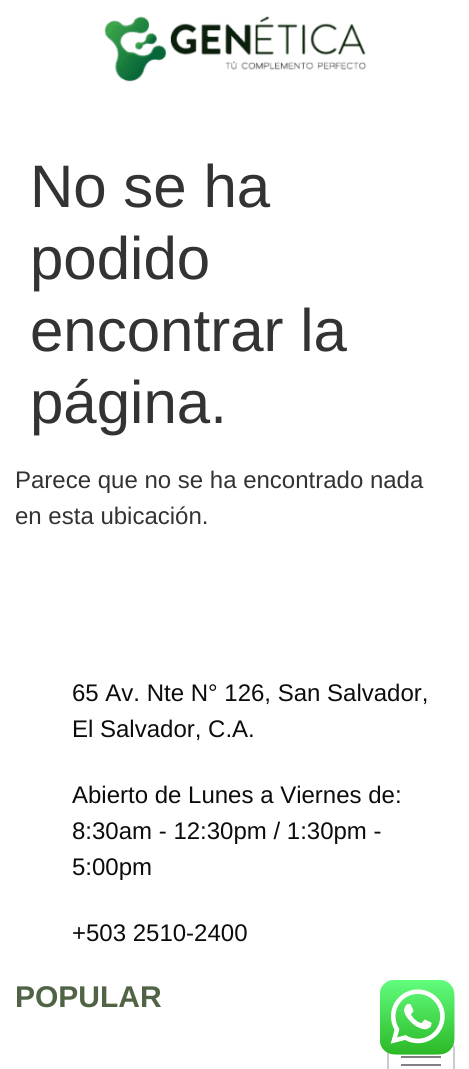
#include <cairo.h>
#include <math.h>
#include <stddef.h>


static void rgb(cairo_t *cr, int r, int g, int b)
{
	cairo_set_source_rgb(cr, r / 255.0, g / 255.0, b / 255.0);
}

static void face(cairo_t *cr, const char *family, double size, int italic, int bold)
{
	cairo_select_font_face(cr, family, italic ? CAIRO_FONT_SLANT_ITALIC : CAIRO_FONT_SLANT_NORMAL,
		bold ? CAIRO_FONT_WEIGHT_BOLD : CAIRO_FONT_WEIGHT_NORMAL);
	cairo_set_font_size(cr, size);
}

static void label(cairo_t *cr, double x, double y, const char *s)
{
	cairo_move_to(cr, x, y);
	cairo_show_text(cr, s);
}

static void rect(cairo_t *cr, double x, double y, double w, double h)
{
	cairo_rectangle(cr, x, y, w, h);
	cairo_fill(cr);
}

static void rrect(cairo_t *cr, double x, double y, double w, double h, double r)
{
	cairo_new_sub_path(cr);
	cairo_arc(cr, x + w - r, y + h - r, r, 0, M_PI / 2);
	cairo_arc(cr, x + r, y + h - r, r, M_PI / 2, M_PI);
	cairo_arc(cr, x + r, y + r, r, M_PI, 1.5 * M_PI);
	cairo_arc(cr, x + w - r, y + r, r, 1.5 * M_PI, 2 * M_PI);
	cairo_close_path(cr);
}

static void image(cairo_t *cr, const char *path, double x, double y, double w, double h)
{
	cairo_surface_t *image = cairo_image_surface_create_from_png(path);
	cairo_save(cr);
	cairo_set_source_surface(cr, image, x, y);
	cairo_rectangle(cr, x, y, w, h);
	cairo_fill(cr);
	cairo_restore(cr);
	cairo_surface_destroy(image);
}

static void draw(cairo_t *cr) {
	rgb(cr, 255, 255, 255);
	cairo_paint(cr);
	image(cr, "image0.png", 104, 16, 262, 66);
	face(cr, "Liberation Sans", 60, 0, 0);
	rgb(cr, 51, 51, 51);
	label(cr, 30, 207, "No se ha");
	label(cr, 30, 279, "podido");
	label(cr, 30, 351, "encontrar la");
	label(cr, 30, 423, "página.");
	face(cr, "Liberation Sans", 24, 0, 0);
	label(cr, 15, 488, "Parece que no se ha encontrado nada");
	label(cr, 15, 524, "en esta ubicación.");
	rgb(cr, 12, 12, 12);
	label(cr, 72, 701, "65 Av. Nte N° 126, San Salvador,");
	label(cr, 72, 737, "El Salvador, C.A.");
	label(cr, 72, 803, "Abierto de Lunes a Viernes de:");
	label(cr, 72, 839, "8:30am - 12:30pm / 1:30pm -");
	label(cr, 72, 875, "5:00pm");
	label(cr, 72, 941, "+503 2510-2400");
	face(cr, "Liberation Sans", 30, 0, 1);
	rgb(cr, 80, 100, 69);
	label(cr, 15, 1007, "POPULAR");
	rrect(cr, 388, 1044, 66, 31, 4);
	rgb(cr, 204, 204, 204);
	cairo_stroke(cr);
	rgb(cr, 128, 128, 128);
	rect(cr, 401, 1056, 40, 2);
	rect(cr, 401, 1064, 40, 2);
	image(cr, "image1.png", 380, 980, 75, 75);
}

int main(void) {
	cairo_surface_t *surface = cairo_image_surface_create(CAIRO_FORMAT_RGB24, 469, 1069);
	cairo_t *cr = cairo_create(surface);
	cairo_font_options_t *options = cairo_font_options_create();
	cairo_font_options_set_hint_metrics(options, CAIRO_HINT_METRICS_OFF);
	cairo_font_options_set_hint_style(options, CAIRO_HINT_STYLE_NONE);
	cairo_set_font_options(cr, options);
	cairo_set_miter_limit(cr, 4);
	draw(cr);
	cairo_surface_write_to_png(surface, "render.png");
	cairo_font_options_destroy(options);
	cairo_destroy(cr);
	cairo_surface_destroy(surface);
	return 0;
}
